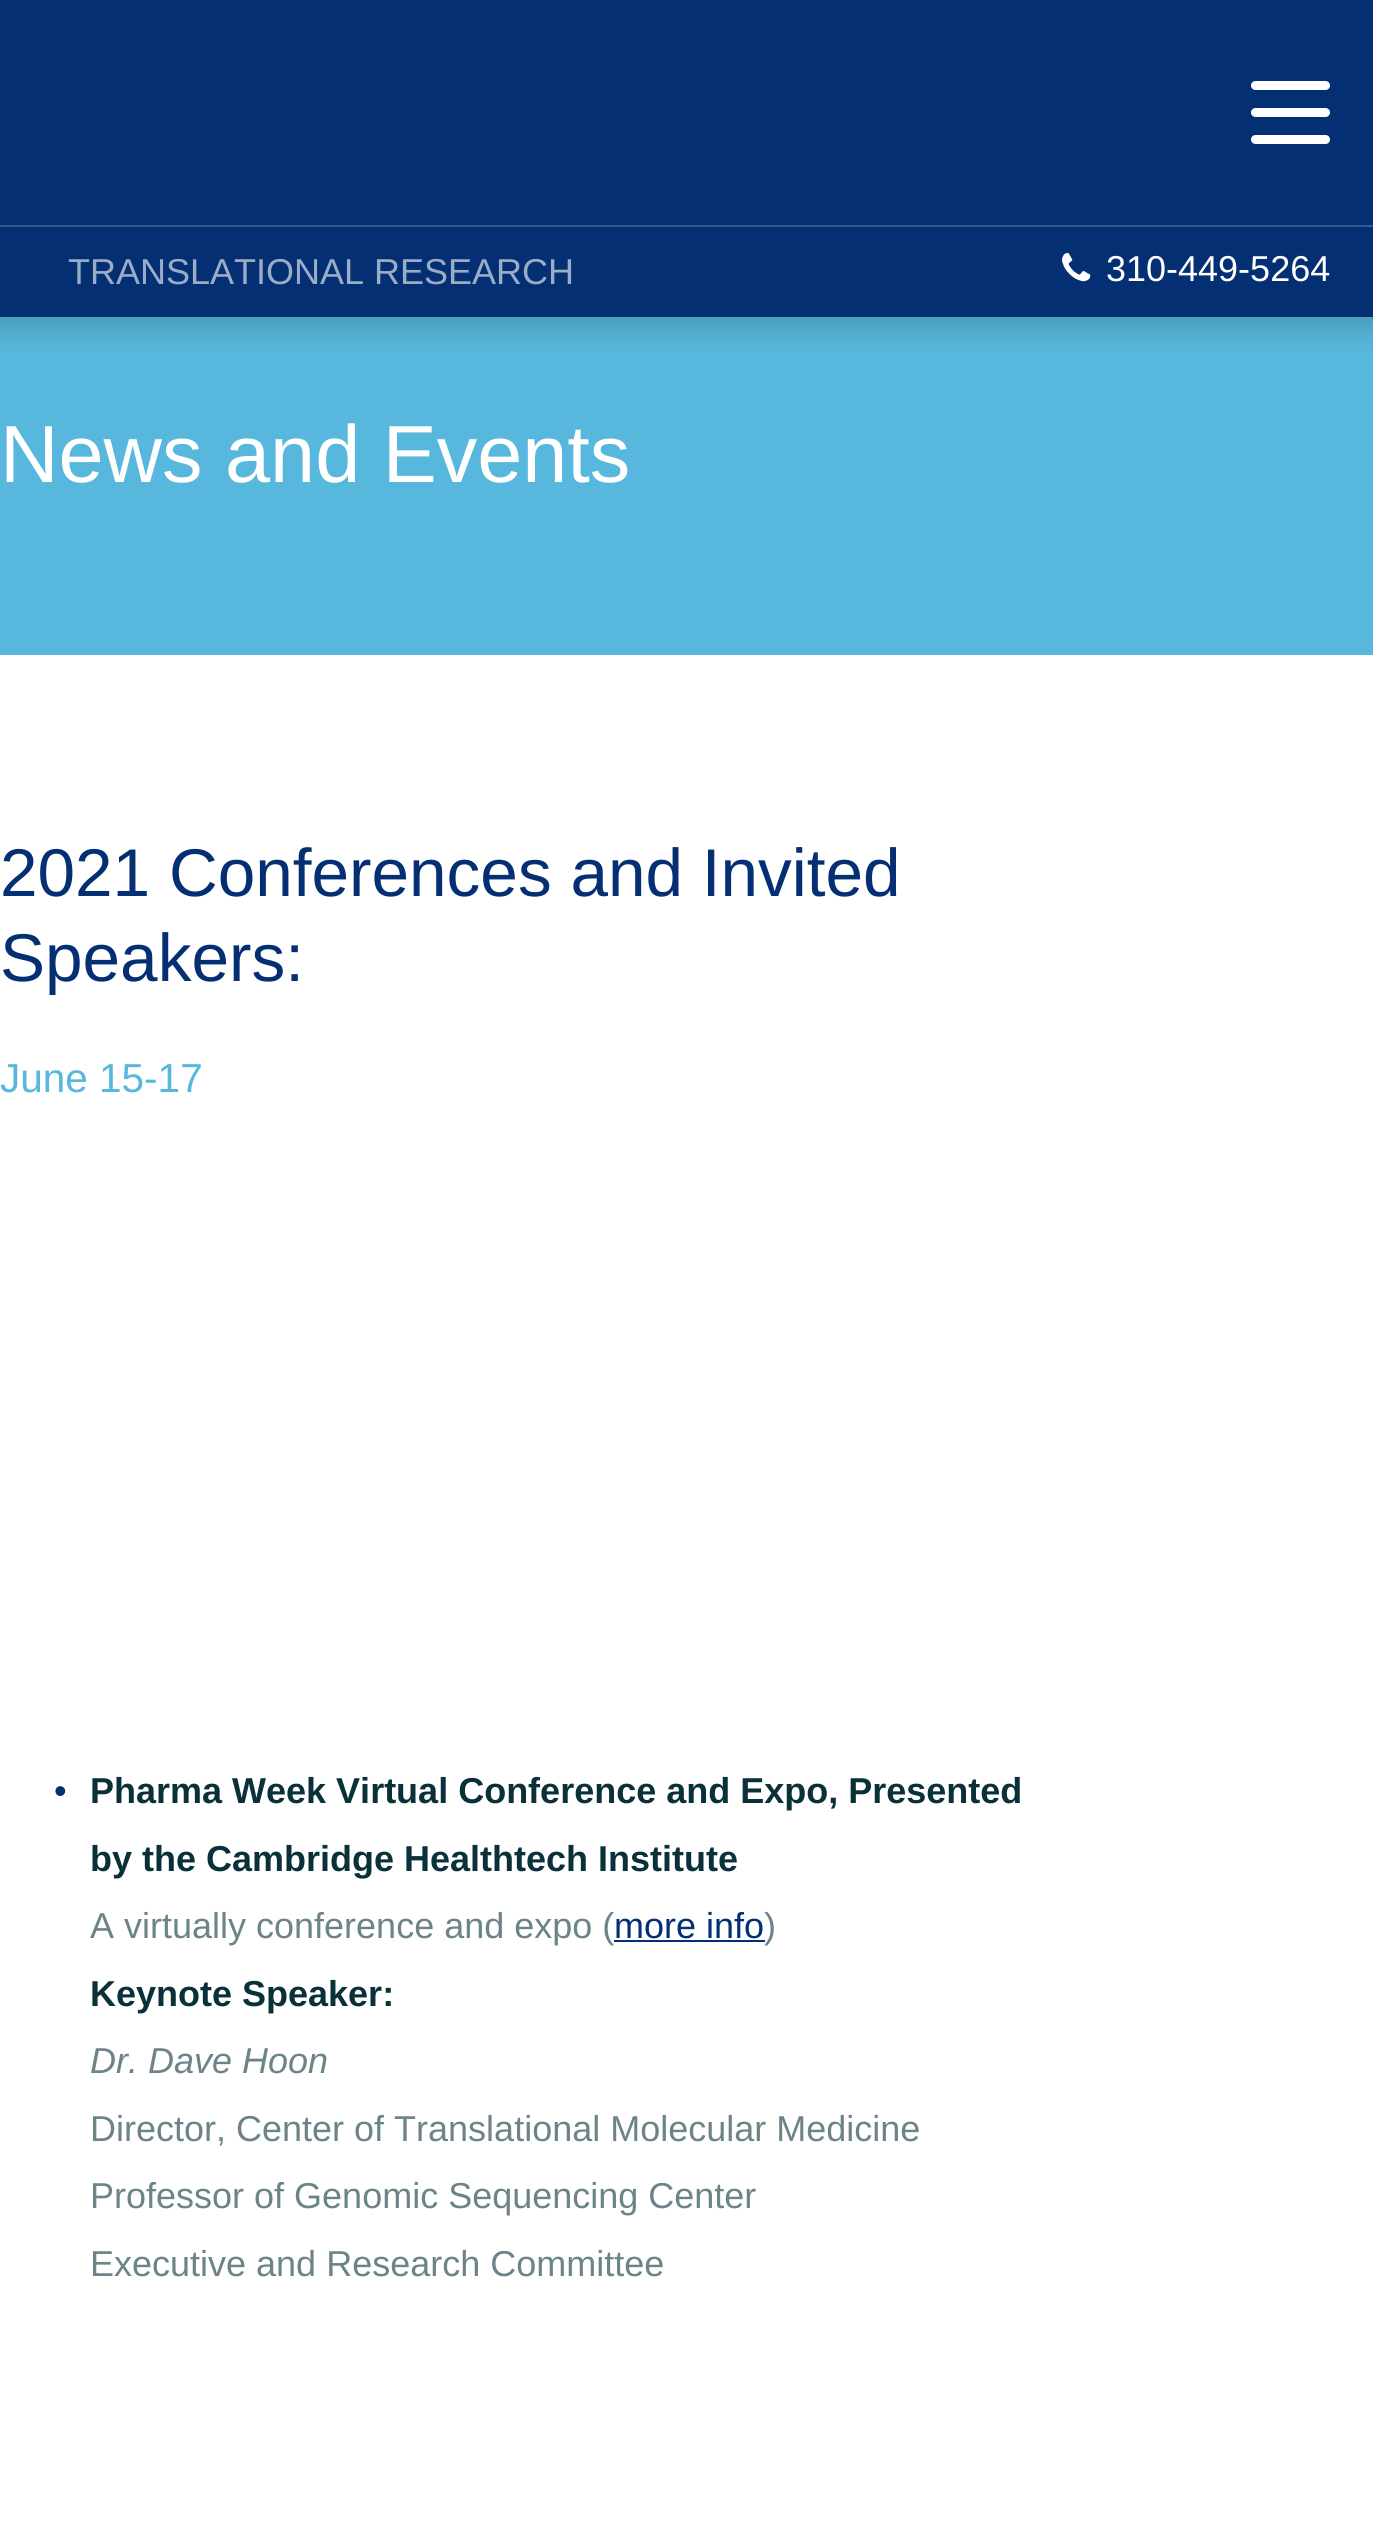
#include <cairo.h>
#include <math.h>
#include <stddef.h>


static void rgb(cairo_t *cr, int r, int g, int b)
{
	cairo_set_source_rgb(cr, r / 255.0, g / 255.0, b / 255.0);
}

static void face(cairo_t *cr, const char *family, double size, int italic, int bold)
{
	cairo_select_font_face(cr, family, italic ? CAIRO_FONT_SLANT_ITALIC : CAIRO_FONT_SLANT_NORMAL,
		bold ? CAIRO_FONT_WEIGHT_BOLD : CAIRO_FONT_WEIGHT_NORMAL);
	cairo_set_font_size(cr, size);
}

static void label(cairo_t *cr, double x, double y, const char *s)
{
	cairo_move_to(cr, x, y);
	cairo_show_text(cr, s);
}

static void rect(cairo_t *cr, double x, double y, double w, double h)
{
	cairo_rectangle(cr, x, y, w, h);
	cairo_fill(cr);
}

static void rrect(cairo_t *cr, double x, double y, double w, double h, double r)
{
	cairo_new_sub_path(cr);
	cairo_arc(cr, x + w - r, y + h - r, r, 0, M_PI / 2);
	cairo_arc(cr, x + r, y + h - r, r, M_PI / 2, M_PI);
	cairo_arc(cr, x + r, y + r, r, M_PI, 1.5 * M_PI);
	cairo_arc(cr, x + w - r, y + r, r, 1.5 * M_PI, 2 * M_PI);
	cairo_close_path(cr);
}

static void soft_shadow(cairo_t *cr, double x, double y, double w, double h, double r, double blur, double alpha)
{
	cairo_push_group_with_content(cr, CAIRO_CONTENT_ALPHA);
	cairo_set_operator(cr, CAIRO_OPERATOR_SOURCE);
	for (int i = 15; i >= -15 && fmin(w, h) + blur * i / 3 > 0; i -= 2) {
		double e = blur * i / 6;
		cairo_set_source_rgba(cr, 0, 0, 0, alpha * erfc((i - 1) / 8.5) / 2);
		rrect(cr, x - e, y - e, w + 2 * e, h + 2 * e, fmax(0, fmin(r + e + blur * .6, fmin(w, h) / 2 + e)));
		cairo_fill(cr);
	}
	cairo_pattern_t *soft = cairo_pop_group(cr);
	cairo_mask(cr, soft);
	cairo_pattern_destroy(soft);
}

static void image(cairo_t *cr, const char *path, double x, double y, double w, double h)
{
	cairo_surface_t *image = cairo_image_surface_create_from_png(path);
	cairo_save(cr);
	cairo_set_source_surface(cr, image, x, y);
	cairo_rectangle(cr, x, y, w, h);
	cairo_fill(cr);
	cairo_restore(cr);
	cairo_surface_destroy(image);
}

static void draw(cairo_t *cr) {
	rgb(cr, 255, 255, 255);
	cairo_paint(cr);
	rgb(cr, 87, 183, 220);
	rect(cr, 0, 317, 1373, 338);
	rgb(cr, 0, 0, 0);
	soft_shadow(cr, -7, 0, 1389, 331, 0, 11, 0.15);
	rgb(cr, 4, 47, 114);
	rect(cr, 0, 0, 1373, 317);
	rgb(cr, 255, 255, 255);
	rrect(cr, 1251, 108, 79, 9, 4.5);
	cairo_fill(cr);
	rrect(cr, 1251, 81, 79, 9, 4.5);
	cairo_fill(cr);
	rrect(cr, 1251, 135, 79, 9, 4.5);
	cairo_fill(cr);
	rgb(cr, 54, 89, 142);
	rect(cr, 0, 225, 1373, 2);
	face(cr, "Liberation Sans", 36, 0, 0);
	rgb(cr, 155, 172, 199);
	label(cr, 68, 284, "TRANSLATIONAL RESEARCH");
	image(cr, "image0.png", 1062, 253, 29, 29);
	rgb(cr, 255, 255, 255);
	label(cr, 1106, 281, "310-449-5264");
	face(cr, "Liberation Sans", 81, 0, 0);
	label(cr, 0, 482, "News and Events");
	face(cr, "Liberation Sans", 67.5, 0, 0);
	rgb(cr, 4, 47, 114);
	label(cr, 0, 896, "2021 Conferences and Invited");
	label(cr, 0, 981, "Speakers:");
	face(cr, "Liberation Sans", 40.5, 0, 0);
	rgb(cr, 87, 183, 220);
	label(cr, 0, 1092, "June 15-17");
	face(cr, "Liberation Sans", 36, 0, 0);
	rgb(cr, 4, 47, 114);
	label(cr, 54, 1803, "•");
	face(cr, "Liberation Sans", 36, 0, 1);
	rgb(cr, 10, 48, 57);
	label(cr, 90, 1803, "Pharma Week Virtual Conference and Expo, Presented");
	label(cr, 90, 1871, "by the Cambridge Healthtech Institute");
	face(cr, "Liberation Sans", 36, 0, 0);
	rgb(cr, 108, 131, 136);
	label(cr, 90, 1938, "A virtually conference and expo (");
	rgb(cr, 4, 47, 114);
	label(cr, 614, 1938, "more info");
	rect(cr, 614, 1940, 151, 2);
	rgb(cr, 108, 131, 136);
	label(cr, 764, 1938, ")");
	face(cr, "Liberation Sans", 36, 0, 1);
	rgb(cr, 10, 48, 57);
	label(cr, 90, 2006, "Keynote Speaker:");
	face(cr, "Liberation Sans", 36, 1, 0);
	rgb(cr, 108, 131, 136);
	label(cr, 90, 2073, "Dr. Dave Hoon");
	face(cr, "Liberation Sans", 36, 0, 0);
	label(cr, 90, 2141, "Director, Center of Translational Molecular Medicine");
	label(cr, 90, 2208, "Professor of Genomic Sequencing Center");
	label(cr, 90, 2276, "Executive and Research Committee");
}

int main(void) {
	cairo_surface_t *surface = cairo_image_surface_create(CAIRO_FORMAT_RGB24, 1373, 2529);
	cairo_t *cr = cairo_create(surface);
	cairo_font_options_t *options = cairo_font_options_create();
	cairo_font_options_set_hint_metrics(options, CAIRO_HINT_METRICS_OFF);
	cairo_font_options_set_hint_style(options, CAIRO_HINT_STYLE_NONE);
	cairo_set_font_options(cr, options);
	cairo_set_miter_limit(cr, 4);
	draw(cr);
	cairo_surface_write_to_png(surface, "render.png");
	cairo_font_options_destroy(options);
	cairo_destroy(cr);
	cairo_surface_destroy(surface);
	return 0;
}
